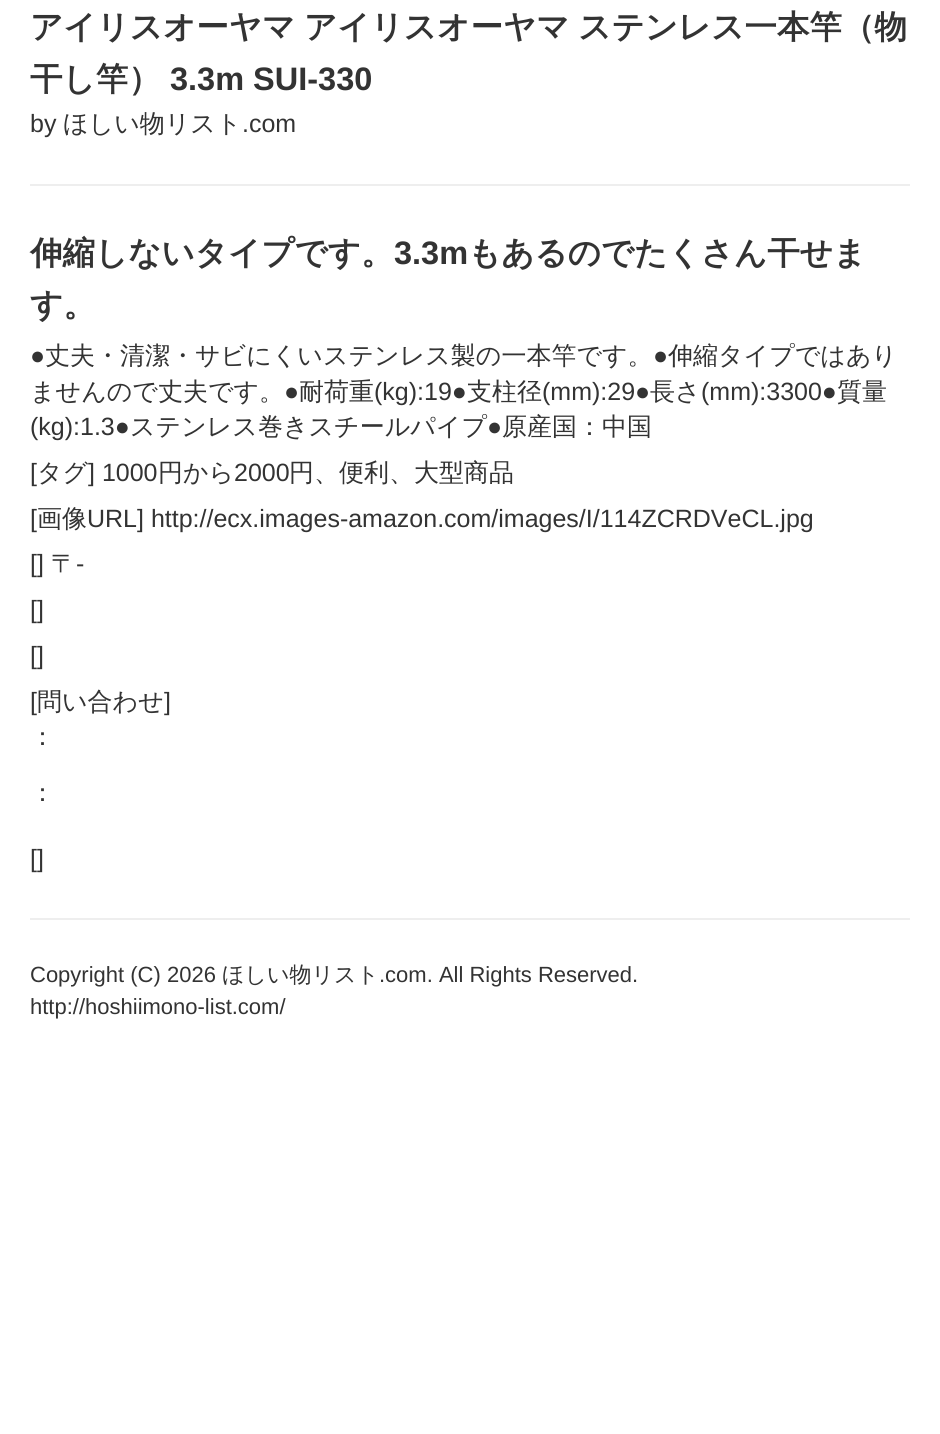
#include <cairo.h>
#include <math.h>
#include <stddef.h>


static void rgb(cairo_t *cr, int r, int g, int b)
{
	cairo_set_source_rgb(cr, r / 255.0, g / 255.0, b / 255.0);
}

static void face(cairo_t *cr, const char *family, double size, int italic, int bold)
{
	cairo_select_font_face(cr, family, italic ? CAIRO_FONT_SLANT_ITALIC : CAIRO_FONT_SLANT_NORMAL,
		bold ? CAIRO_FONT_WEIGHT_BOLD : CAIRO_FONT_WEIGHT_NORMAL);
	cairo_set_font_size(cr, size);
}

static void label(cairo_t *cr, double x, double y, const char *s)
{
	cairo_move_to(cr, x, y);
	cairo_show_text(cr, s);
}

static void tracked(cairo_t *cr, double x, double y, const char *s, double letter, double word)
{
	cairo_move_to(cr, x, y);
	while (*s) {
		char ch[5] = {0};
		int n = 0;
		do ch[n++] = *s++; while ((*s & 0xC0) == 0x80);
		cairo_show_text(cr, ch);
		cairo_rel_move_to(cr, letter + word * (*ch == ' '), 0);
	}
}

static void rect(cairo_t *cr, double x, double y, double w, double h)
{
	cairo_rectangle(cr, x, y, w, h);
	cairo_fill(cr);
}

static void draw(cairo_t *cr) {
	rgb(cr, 255, 255, 255);
	cairo_paint(cr);
	face(cr, "WenQuanYi Zen Hei", 32.5, 0, 1);
	rgb(cr, 51, 51, 51);
	tracked(cr, 30, 38, "アイリスオーヤマ アイリスオーヤマ ステンレス一本竿（物", 0, -1);
	label(cr, 30, 90, "干し竿）");
	face(cr, "Liberation Sans", 32.5, 0, 1);
	label(cr, 170, 90, "3.3m SUI-330");
	face(cr, "Liberation Sans", 25, 0, 0);
	label(cr, 30, 132, "by");
	face(cr, "WenQuanYi Zen Hei Medium", 25, 0, 0);
	label(cr, 63, 132, "ほしい物リスト");
	face(cr, "Liberation Sans", 25, 0, 0);
	label(cr, 242, 132, ".com");
	rgb(cr, 238, 238, 238);
	rect(cr, 30, 184, 880, 2);
	face(cr, "WenQuanYi Zen Hei", 32.5, 0, 1);
	rgb(cr, 51, 51, 51);
	label(cr, 30, 264, "伸縮しないタイプです。");
	face(cr, "Liberation Sans", 32.5, 0, 1);
	label(cr, 394, 264, "3.3m");
	face(cr, "WenQuanYi Zen Hei", 32.5, 0, 1);
	label(cr, 468, 264, "もあるのでたくさん干せま");
	label(cr, 30, 316, "す。");
	face(cr, "Liberation Sans", 25, 0, 0);
	label(cr, 30, 364, "●");
	face(cr, "WenQuanYi Zen Hei Medium", 25, 0, 0);
	label(cr, 45, 364, "丈夫・清潔・サビにくいステンレス製の一本竿です。");
	face(cr, "Liberation Sans", 25, 0, 0);
	label(cr, 653, 364, "●");
	face(cr, "WenQuanYi Zen Hei Medium", 25, 0, 0);
	label(cr, 668, 364, "伸縮タイプではあり");
	label(cr, 30, 400, "ませんので丈夫です。");
	face(cr, "Liberation Sans", 25, 0, 0);
	label(cr, 284, 400, "●");
	face(cr, "WenQuanYi Zen Hei Medium", 25, 0, 0);
	label(cr, 299, 400, "耐荷重");
	face(cr, "Liberation Sans", 25, 0, 0);
	label(cr, 374, 400, "(kg):19●");
	face(cr, "WenQuanYi Zen Hei Medium", 25, 0, 0);
	label(cr, 467, 400, "支柱径");
	face(cr, "Liberation Sans", 25, 0, 0);
	label(cr, 542, 400, "(mm):29●");
	face(cr, "WenQuanYi Zen Hei Medium", 25, 0, 0);
	label(cr, 650, 400, "長さ");
	face(cr, "Liberation Sans", 25, 0, 0);
	label(cr, 701, 400, "(mm):3300●");
	face(cr, "WenQuanYi Zen Hei Medium", 25, 0, 0);
	label(cr, 837, 400, "質量");
	face(cr, "Liberation Sans", 25, 0, 0);
	label(cr, 30, 435, "(kg):1.3●");
	face(cr, "WenQuanYi Zen Hei Medium", 25, 0, 0);
	label(cr, 130, 435, "ステンレス巻きスチールパイプ");
	face(cr, "Liberation Sans", 25, 0, 0);
	label(cr, 487, 435, "●");
	face(cr, "WenQuanYi Zen Hei Medium", 25, 0, 0);
	label(cr, 502, 435, "原産国：中国");
	face(cr, "Liberation Sans", 25, 0, 0);
	label(cr, 30, 481, "[");
	face(cr, "WenQuanYi Zen Hei Medium", 25, 0, 0);
	label(cr, 37, 481, "タグ");
	face(cr, "Liberation Sans", 25, 0, 0);
	label(cr, 88, 481, "] 1000");
	face(cr, "WenQuanYi Zen Hei Medium", 25, 0, 0);
	label(cr, 158, 481, "円から");
	face(cr, "Liberation Sans", 25, 0, 0);
	label(cr, 234, 481, "2000");
	face(cr, "WenQuanYi Zen Hei Medium", 25, 0, 0);
	label(cr, 289, 481, "円、便利、大型商品");
	face(cr, "Liberation Sans", 25, 0, 0);
	label(cr, 30, 527, "[");
	face(cr, "WenQuanYi Zen Hei Medium", 25, 0, 0);
	label(cr, 37, 527, "画像");
	face(cr, "Liberation Sans", 25, 0, 0);
	label(cr, 87, 527, "URL] http://ecx.images-amazon.com/images/I/114ZCRDVeCL.jpg");
	label(cr, 30, 572, "[]");
	face(cr, "WenQuanYi Zen Hei Medium", 25, 0, 0);
	label(cr, 51, 572, "〒");
	face(cr, "Liberation Sans", 25, 0, 0);
	label(cr, 76, 572, "-");
	label(cr, 30, 618, "[]");
	label(cr, 30, 664, "[]");
	label(cr, 30, 710, "[");
	face(cr, "WenQuanYi Zen Hei Medium", 25, 0, 0);
	label(cr, 37, 710, "問い合わせ");
	face(cr, "Liberation Sans", 25, 0, 0);
	label(cr, 164, 710, "]");
	face(cr, "WenQuanYi Zen Hei Medium", 25, 0, 0);
	label(cr, 30, 745, "：");
	label(cr, 30, 801, "：");
	face(cr, "Liberation Sans", 25, 0, 0);
	label(cr, 30, 867, "[]");
	rgb(cr, 238, 238, 238);
	rect(cr, 30, 918, 880, 2);
	face(cr, "Liberation Sans", 22, 0, 0);
	rgb(cr, 51, 51, 51);
	label(cr, 30, 982, "Copyright (C) 2026");
	face(cr, "WenQuanYi Zen Hei Medium", 22, 0, 0);
	label(cr, 222, 982, "ほしい物リスト");
	face(cr, "Liberation Sans", 22, 0, 0);
	label(cr, 379, 982, ".com. All Rights Reserved.");
	label(cr, 30, 1014, "http://hoshiimono-list.com/");
}

int main(void) {
	cairo_surface_t *surface = cairo_image_surface_create(CAIRO_FORMAT_RGB24, 940, 1434);
	cairo_t *cr = cairo_create(surface);
	cairo_font_options_t *options = cairo_font_options_create();
	cairo_font_options_set_hint_metrics(options, CAIRO_HINT_METRICS_OFF);
	cairo_font_options_set_hint_style(options, CAIRO_HINT_STYLE_NONE);
	cairo_set_font_options(cr, options);
	cairo_set_miter_limit(cr, 4);
	draw(cr);
	cairo_surface_write_to_png(surface, "render.png");
	cairo_font_options_destroy(options);
	cairo_destroy(cr);
	cairo_surface_destroy(surface);
	return 0;
}
